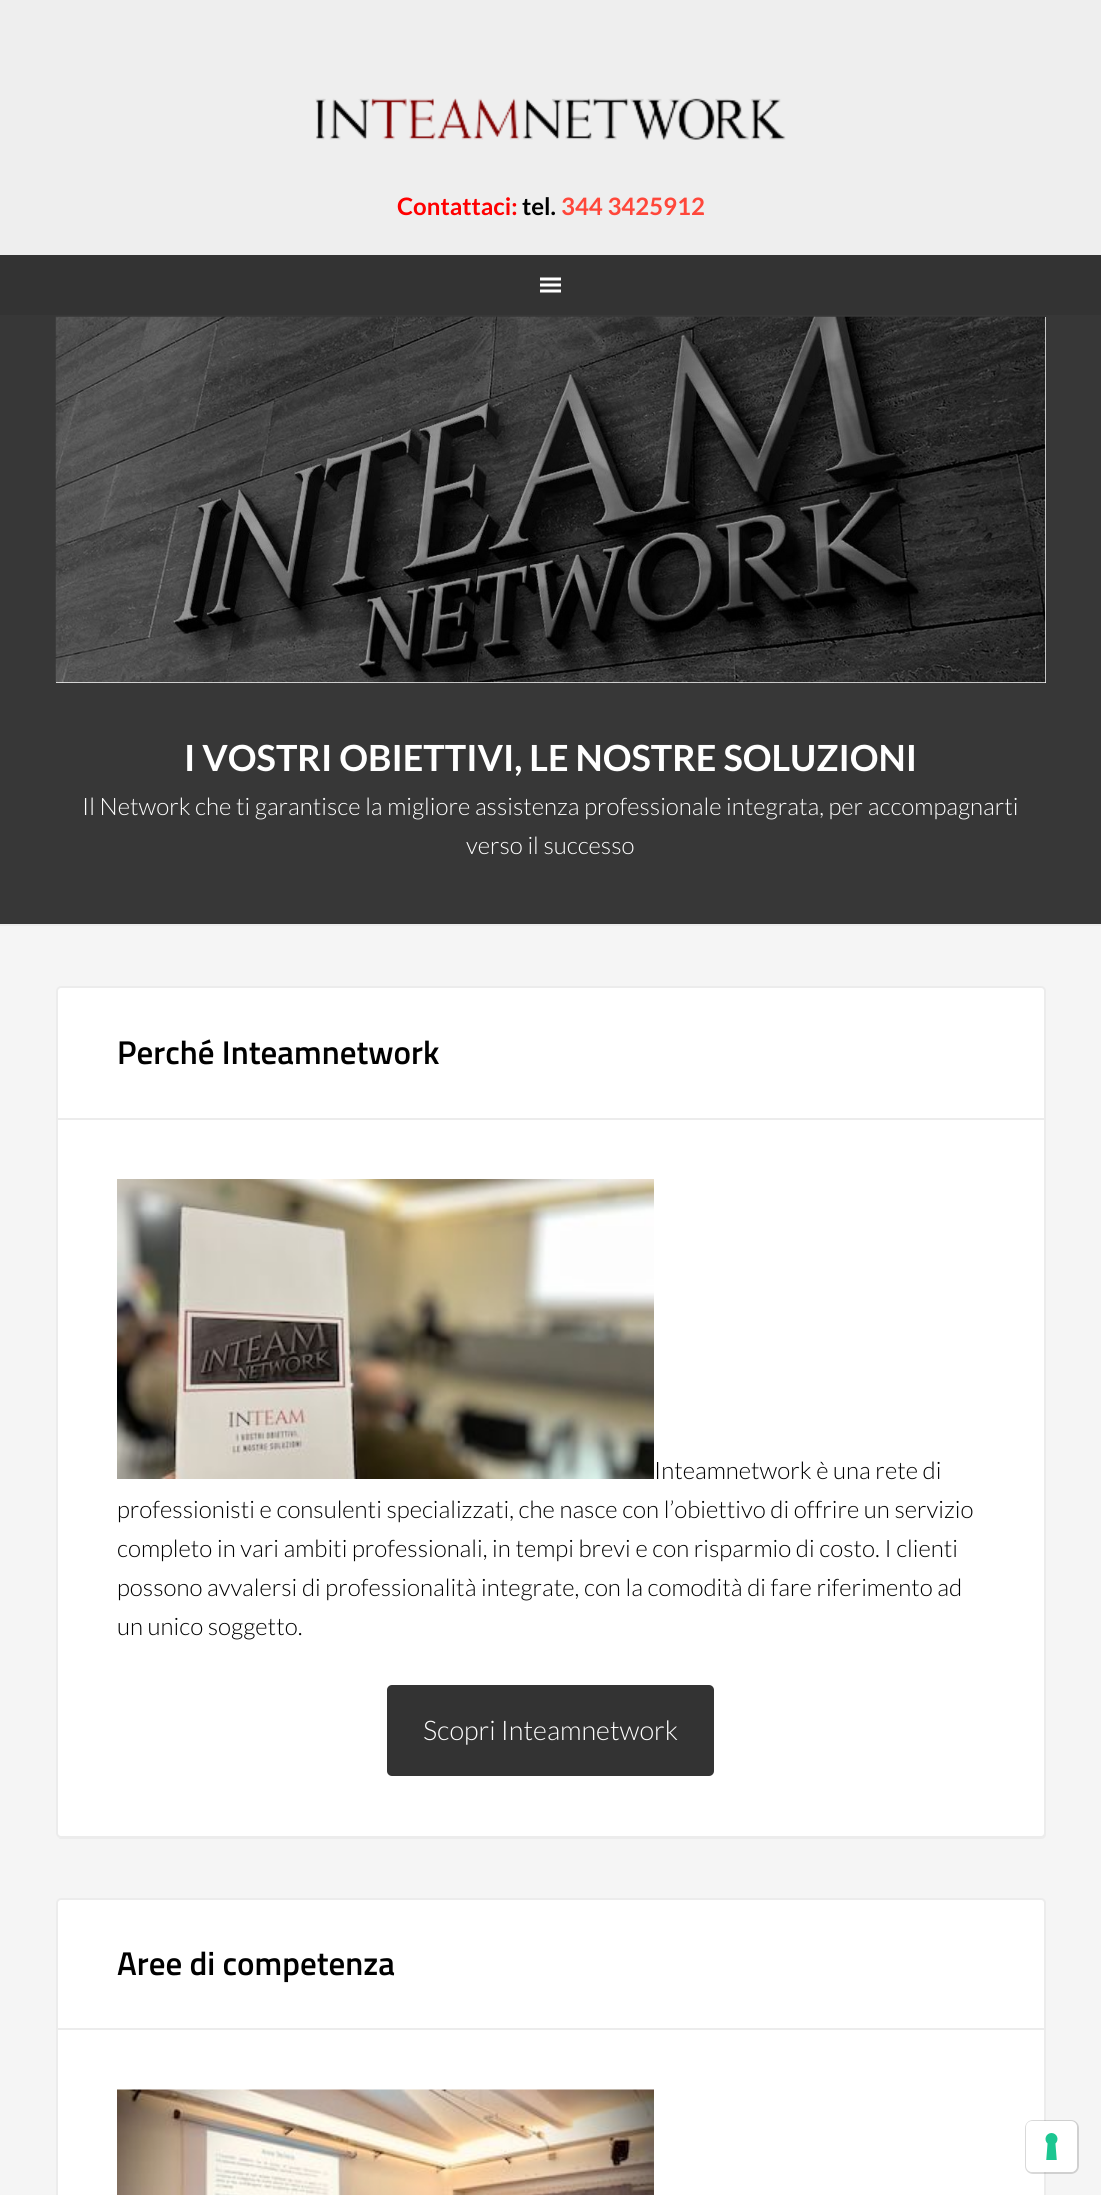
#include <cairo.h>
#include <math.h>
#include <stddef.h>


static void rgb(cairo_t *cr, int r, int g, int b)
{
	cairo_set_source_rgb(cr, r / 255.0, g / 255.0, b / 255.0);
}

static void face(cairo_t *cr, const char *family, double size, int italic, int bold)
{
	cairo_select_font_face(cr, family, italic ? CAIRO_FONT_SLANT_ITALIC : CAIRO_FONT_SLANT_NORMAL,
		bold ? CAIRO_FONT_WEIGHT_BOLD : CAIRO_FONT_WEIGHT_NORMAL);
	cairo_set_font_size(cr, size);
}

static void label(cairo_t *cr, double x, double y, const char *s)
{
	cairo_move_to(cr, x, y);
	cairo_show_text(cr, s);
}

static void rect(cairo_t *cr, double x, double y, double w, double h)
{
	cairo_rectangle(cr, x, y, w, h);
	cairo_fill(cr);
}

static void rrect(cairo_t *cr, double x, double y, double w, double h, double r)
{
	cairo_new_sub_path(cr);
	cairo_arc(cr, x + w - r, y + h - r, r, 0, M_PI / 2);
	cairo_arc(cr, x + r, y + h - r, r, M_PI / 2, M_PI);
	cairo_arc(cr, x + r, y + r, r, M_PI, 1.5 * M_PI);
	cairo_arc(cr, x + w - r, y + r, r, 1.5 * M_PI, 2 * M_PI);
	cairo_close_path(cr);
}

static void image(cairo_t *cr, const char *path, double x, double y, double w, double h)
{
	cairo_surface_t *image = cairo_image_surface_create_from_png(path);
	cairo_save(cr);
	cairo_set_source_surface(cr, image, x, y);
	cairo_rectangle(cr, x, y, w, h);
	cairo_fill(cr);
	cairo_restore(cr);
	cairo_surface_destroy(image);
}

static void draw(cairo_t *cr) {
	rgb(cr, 55, 55, 55);
	cairo_paint(cr);
	rgb(cr, 238, 238, 238);
	rect(cr, 0, 0, 1101, 255);
	image(cr, "image0.png", 315, 98, 471, 42);
	face(cr, "Lato", 24, 0, 1);
	rgb(cr, 255, 0, 0);
	label(cr, 397, 215, "Contattaci:");
	rgb(cr, 0, 0, 0);
	label(cr, 522, 215, "tel.");
	rgb(cr, 255, 71, 58);
	label(cr, 561, 215, "344 3425912");
	rgb(cr, 51, 51, 51);
	rect(cr, 0, 255, 1101, 60);
	image(cr, "image1.png", 540, 277, 21, 16);
	rgb(cr, 255, 255, 255);
	rect(cr, 56, 317, 990, 366);
	image(cr, "image2.png", 55, 316, 991, 367);
	face(cr, "Lato", 36, 0, 1);
	label(cr, 184, 771, "I VOSTRI OBIETTIVI, LE NOSTRE SOLUZIONI");
	face(cr, "Lato Light", 24, 0, 0);
	label(cr, 82, 815, "Il Network che ti garantisce la migliore assistenza professionale integrata, per accompagnarti");
	label(cr, 466, 854, "verso il successo");
	rgb(cr, 245, 245, 245);
	rect(cr, 0, 926, 1101, 1269);
	rgb(cr, 236, 236, 236);
	rect(cr, 0, 924, 1101, 2);
	cairo_new_path(cr);
	cairo_move_to(cr, 56, 1835);
	cairo_curve_to(cr, 57, 1837, 59, 1839, 61, 1839);
	cairo_line_to(cr, 1041, 1839);
	cairo_curve_to(cr, 1044, 1839, 1046, 1837, 1046, 1834);
	cairo_line_to(cr, 1046, 992);
	cairo_line_to(cr, 1045, 990);
	cairo_line_to(cr, 1046, 1833);
	cairo_curve_to(cr, 1046, 1835, 1043, 1838, 1041, 1838);
	cairo_line_to(cr, 60, 1838);
	cairo_curve_to(cr, 58, 1838, 57, 1837, 56, 1835);
	cairo_close_path(cr);
	cairo_fill(cr);
	rgb(cr, 255, 255, 255);
	rrect(cr, 57, 987, 988, 850, 4);
	cairo_fill_preserve(cr);
	rgb(cr, 236, 236, 236);
	cairo_stroke(cr);
	rect(cr, 57, 1118, 987, 2);
	face(cr, "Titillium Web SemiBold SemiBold", 33, 0, 0);
	rgb(cr, 0, 0, 0);
	label(cr, 117, 1064, "Perché Inteamnetwork");
	image(cr, "image3.png", 117, 1179, 537, 300);
	face(cr, "Lato Light", 24, 0, 0);
	label(cr, 654, 1479, "Inteamnetwork è una rete di");
	label(cr, 117, 1518, "professionisti e consulenti specializzati, che nasce con l’obiettivo di offrire un servizio");
	label(cr, 117, 1557, "completo in vari ambiti professionali, in tempi brevi e con risparmio di costo. I clienti");
	label(cr, 117, 1596, "possono avvalersi di professionalità integrate, con la comodità di fare riferimento ad");
	label(cr, 117, 1635, "un unico soggetto.");
	rgb(cr, 51, 51, 51);
	rrect(cr, 387, 1685, 327, 91, 5);
	cairo_fill(cr);
	face(cr, "Lato Light", 27, 0, 0);
	rgb(cr, 255, 255, 255);
	label(cr, 423, 1740, "Scopri Inteamnetwork");
	rrect(cr, 57, 1899, 988, 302, 4);
	cairo_fill_preserve(cr);
	rgb(cr, 236, 236, 236);
	cairo_stroke(cr);
	rect(cr, 57, 2028, 987, 2);
	face(cr, "Titillium Web SemiBold SemiBold", 33, 0, 0);
	rgb(cr, 0, 0, 0);
	label(cr, 117, 1975, "Aree di competenza");
	image(cr, "image4.png", 117, 2089, 537, 106);
	rrect(cr, 1026, 2121, 52, 52, 7);
	cairo_set_source_rgba(cr, 0, 0, 0, 0.15);
	cairo_stroke(cr);
	rgb(cr, 255, 255, 255);
	rrect(cr, 1026, 2121, 51, 51, 6);
	cairo_fill(cr);
	image(cr, "image5.png", 1045, 2133, 13, 27);
}

int main(void) {
	cairo_surface_t *surface = cairo_image_surface_create(CAIRO_FORMAT_RGB24, 1101, 2195);
	cairo_t *cr = cairo_create(surface);
	cairo_font_options_t *options = cairo_font_options_create();
	cairo_font_options_set_hint_metrics(options, CAIRO_HINT_METRICS_OFF);
	cairo_font_options_set_hint_style(options, CAIRO_HINT_STYLE_NONE);
	cairo_set_font_options(cr, options);
	cairo_set_miter_limit(cr, 4);
	draw(cr);
	cairo_surface_write_to_png(surface, "render.png");
	cairo_font_options_destroy(options);
	cairo_destroy(cr);
	cairo_surface_destroy(surface);
	return 0;
}
